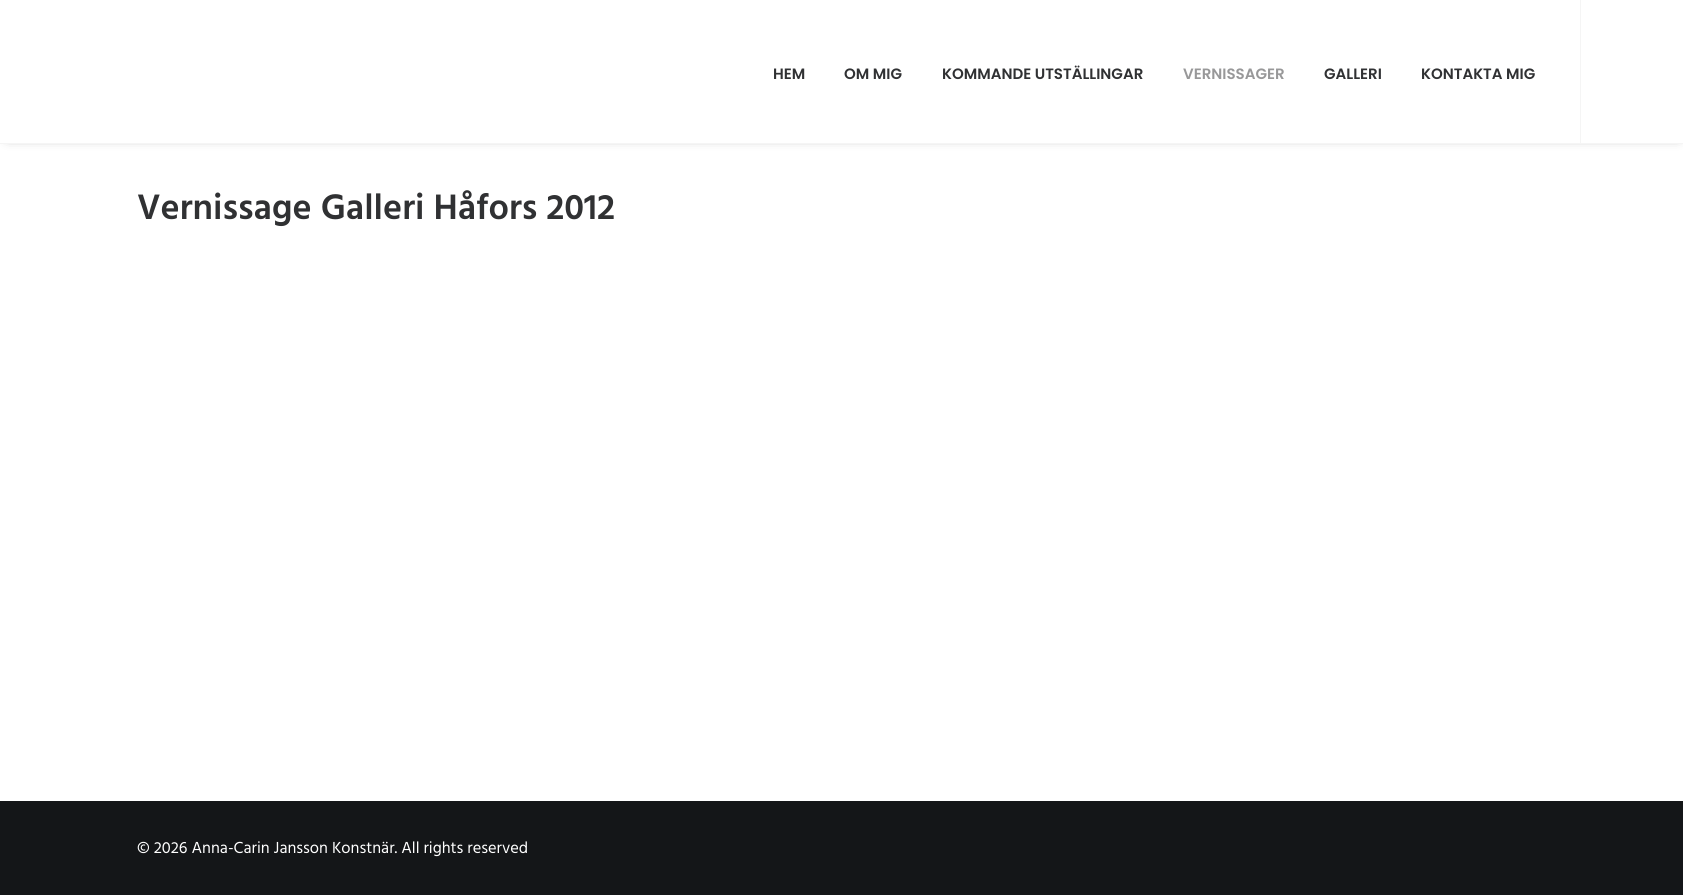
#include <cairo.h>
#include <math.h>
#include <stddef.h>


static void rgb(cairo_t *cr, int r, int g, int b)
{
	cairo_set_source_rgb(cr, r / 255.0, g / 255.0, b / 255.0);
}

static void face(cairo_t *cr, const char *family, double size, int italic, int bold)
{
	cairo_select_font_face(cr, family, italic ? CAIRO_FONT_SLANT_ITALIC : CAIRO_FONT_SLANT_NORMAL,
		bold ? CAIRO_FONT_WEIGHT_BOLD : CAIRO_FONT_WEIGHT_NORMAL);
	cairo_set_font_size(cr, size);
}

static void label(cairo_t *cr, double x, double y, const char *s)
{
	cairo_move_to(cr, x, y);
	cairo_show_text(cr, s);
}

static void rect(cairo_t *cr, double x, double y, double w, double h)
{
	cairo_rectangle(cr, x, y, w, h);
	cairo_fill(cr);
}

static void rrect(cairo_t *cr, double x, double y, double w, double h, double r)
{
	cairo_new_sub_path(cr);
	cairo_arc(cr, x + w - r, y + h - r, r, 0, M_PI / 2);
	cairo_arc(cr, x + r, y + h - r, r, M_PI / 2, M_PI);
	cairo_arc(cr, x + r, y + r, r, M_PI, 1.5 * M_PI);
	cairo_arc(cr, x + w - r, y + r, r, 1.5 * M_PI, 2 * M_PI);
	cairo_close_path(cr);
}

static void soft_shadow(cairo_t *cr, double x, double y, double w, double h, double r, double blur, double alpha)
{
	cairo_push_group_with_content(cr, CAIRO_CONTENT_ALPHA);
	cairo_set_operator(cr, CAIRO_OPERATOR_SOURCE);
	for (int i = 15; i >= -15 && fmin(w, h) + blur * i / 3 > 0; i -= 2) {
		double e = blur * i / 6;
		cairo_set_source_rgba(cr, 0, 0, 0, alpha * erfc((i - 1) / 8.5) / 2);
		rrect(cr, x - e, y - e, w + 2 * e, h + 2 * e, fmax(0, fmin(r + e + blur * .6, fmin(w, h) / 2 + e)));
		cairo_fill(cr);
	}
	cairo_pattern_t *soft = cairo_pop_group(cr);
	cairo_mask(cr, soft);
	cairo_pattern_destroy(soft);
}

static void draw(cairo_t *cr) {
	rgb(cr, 20, 22, 24);
	cairo_paint(cr);
	rgb(cr, 255, 255, 255);
	rect(cr, 0, 144, 1683, 657);
	rgb(cr, 0, 0, 0);
	soft_shadow(cr, 8, 18, 1670, 118, 0, 6, 0.6);
	rgb(cr, 255, 255, 255);
	rect(cr, 0, 0, 1683, 143);
	rgb(cr, 245, 245, 245);
	rect(cr, 0, 143, 1683, 1);
	face(cr, "Poppins SemiBold", 15, 0, 0);
	rgb(cr, 48, 49, 51);
	label(cr, 773, 79, "HEM");
	label(cr, 844, 79, "OM MIG");
	label(cr, 942, 79, "KOMMANDE UTSTÄLLINGAR");
	rgb(cr, 152, 152, 153);
	label(cr, 1183, 79, "VERNISSAGER");
	rgb(cr, 48, 49, 51);
	label(cr, 1324, 79, "GALLERI");
	label(cr, 1421, 79, "KONTAKTA MIG");
	rgb(cr, 245, 245, 245);
	rect(cr, 1580, 0, 1, 143);
	face(cr, "Hind SemiBold", 36.25, 0, 0);
	rgb(cr, 48, 49, 51);
	label(cr, 137, 219, "Vernissage Galleri Håfors 2012");
	face(cr, "Hind", 16.4, 0, 0);
	rgb(cr, 255, 255, 255);
	label(cr, 137, 853, "© 2026 Anna-Carin Jansson Konstnär. All rights reserved");
}

int main(void) {
	cairo_surface_t *surface = cairo_image_surface_create(CAIRO_FORMAT_RGB24, 1683, 895);
	cairo_t *cr = cairo_create(surface);
	cairo_font_options_t *options = cairo_font_options_create();
	cairo_font_options_set_hint_metrics(options, CAIRO_HINT_METRICS_OFF);
	cairo_font_options_set_hint_style(options, CAIRO_HINT_STYLE_NONE);
	cairo_set_font_options(cr, options);
	cairo_set_miter_limit(cr, 4);
	draw(cr);
	cairo_surface_write_to_png(surface, "render.png");
	cairo_font_options_destroy(options);
	cairo_destroy(cr);
	cairo_surface_destroy(surface);
	return 0;
}
